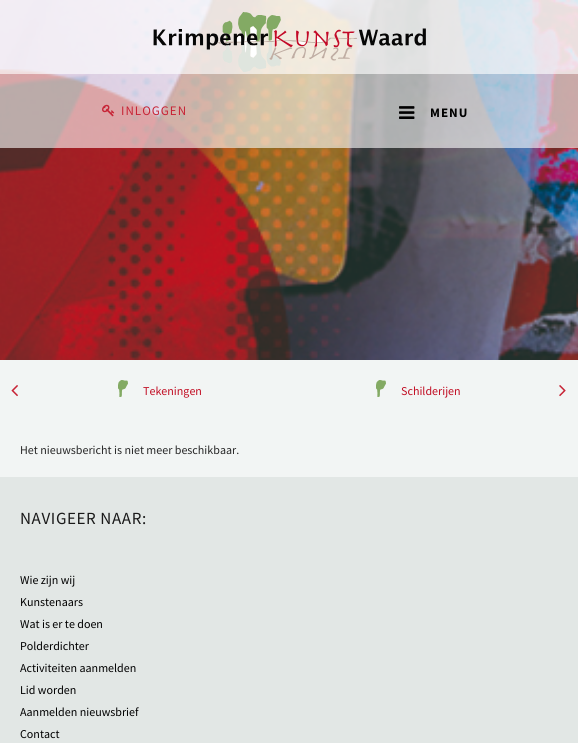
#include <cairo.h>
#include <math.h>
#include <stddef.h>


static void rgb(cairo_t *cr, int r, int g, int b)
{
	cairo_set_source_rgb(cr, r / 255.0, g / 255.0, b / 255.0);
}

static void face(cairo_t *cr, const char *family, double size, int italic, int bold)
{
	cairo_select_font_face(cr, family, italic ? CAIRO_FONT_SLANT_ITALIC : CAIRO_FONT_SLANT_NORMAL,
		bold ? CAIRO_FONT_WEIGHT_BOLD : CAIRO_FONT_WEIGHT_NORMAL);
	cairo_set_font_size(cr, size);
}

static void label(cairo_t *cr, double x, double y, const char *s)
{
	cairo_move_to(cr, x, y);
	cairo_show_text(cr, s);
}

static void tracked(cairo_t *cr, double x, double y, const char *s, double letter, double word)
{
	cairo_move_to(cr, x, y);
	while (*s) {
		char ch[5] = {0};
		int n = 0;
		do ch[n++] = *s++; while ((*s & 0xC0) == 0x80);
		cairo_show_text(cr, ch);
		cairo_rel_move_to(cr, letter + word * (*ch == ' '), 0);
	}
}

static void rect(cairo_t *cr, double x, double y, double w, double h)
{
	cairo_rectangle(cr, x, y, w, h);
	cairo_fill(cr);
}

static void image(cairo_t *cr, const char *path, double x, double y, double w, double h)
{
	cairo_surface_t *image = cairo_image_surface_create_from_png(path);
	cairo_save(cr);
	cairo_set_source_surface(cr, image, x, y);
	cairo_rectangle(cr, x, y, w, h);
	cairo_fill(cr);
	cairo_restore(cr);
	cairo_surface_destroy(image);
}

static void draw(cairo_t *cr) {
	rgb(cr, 242, 245, 244);
	cairo_paint(cr);
	image(cr, "image0.png", 0, 0, 578, 360);
	cairo_set_source_rgba(cr, 1, 1, 1, 0.85);
	rect(cr, 0, 0, 578, 74);
	image(cr, "image1.png", 153, 12, 273, 60);
	cairo_set_source_rgba(cr, 1, 1, 1, 0.6);
	rect(cr, 0, 74, 289, 74);
	image(cr, "image2.png", 102, 104, 13, 13);
	face(cr, "Source Sans Pro", 13, 0, 0);
	rgb(cr, 199, 36, 54);
	tracked(cr, 121, 115, "INLOGGEN", 1, 0);
	cairo_set_source_rgba(cr, 1, 1, 1, 0.6);
	rect(cr, 289, 74, 289, 74);
	image(cr, "image3.png", 399, 106, 16, 13);
	face(cr, "Source Sans Pro", 13, 0, 1);
	rgb(cr, 0, 0, 0);
	tracked(cr, 430, 117, "MENU", 1, 0);
	image(cr, "image4.png", 11, 385, 7, 12);
	image(cr, "image5.png", 559, 385, 7, 12);
	image(cr, "image6.png", 118, 380, 10, 17);
	face(cr, "Source Sans Pro", 12, 0, 0);
	rgb(cr, 193, 12, 34);
	label(cr, 143, 395, "Tekeningen");
	image(cr, "image6.png", 376, 380, 10, 17);
	label(cr, 401, 395, "Schilderijen");
	rgb(cr, 39, 39, 39);
	label(cr, 20, 454, "Het nieuwsbericht is niet meer beschikbaar.");
	rgb(cr, 226, 231, 229);
	rect(cr, 0, 477, 578, 266);
	face(cr, "Source Sans Pro", 17, 0, 0);
	rgb(cr, 25, 25, 25);
	tracked(cr, 20, 524, "NAVIGEER NAAR:", 0.6, 0);
	face(cr, "Source Sans Pro", 12, 0, 0);
	rgb(cr, 0, 0, 0);
	label(cr, 20, 584, "Wie zijn wij");
	label(cr, 20, 606, "Kunstenaars");
	label(cr, 20, 628, "Wat is er te doen");
	label(cr, 20, 650, "Polderdichter");
	label(cr, 20, 672, "Activiteiten aanmelden");
	label(cr, 20, 694, "Lid worden");
	label(cr, 20, 716, "Aanmelden nieuwsbrief");
	label(cr, 20, 738, "Contact");
}

int main(void) {
	cairo_surface_t *surface = cairo_image_surface_create(CAIRO_FORMAT_RGB24, 578, 743);
	cairo_t *cr = cairo_create(surface);
	cairo_font_options_t *options = cairo_font_options_create();
	cairo_font_options_set_hint_metrics(options, CAIRO_HINT_METRICS_OFF);
	cairo_font_options_set_hint_style(options, CAIRO_HINT_STYLE_NONE);
	cairo_set_font_options(cr, options);
	cairo_set_miter_limit(cr, 4);
	draw(cr);
	cairo_surface_write_to_png(surface, "render.png");
	cairo_font_options_destroy(options);
	cairo_destroy(cr);
	cairo_surface_destroy(surface);
	return 0;
}
